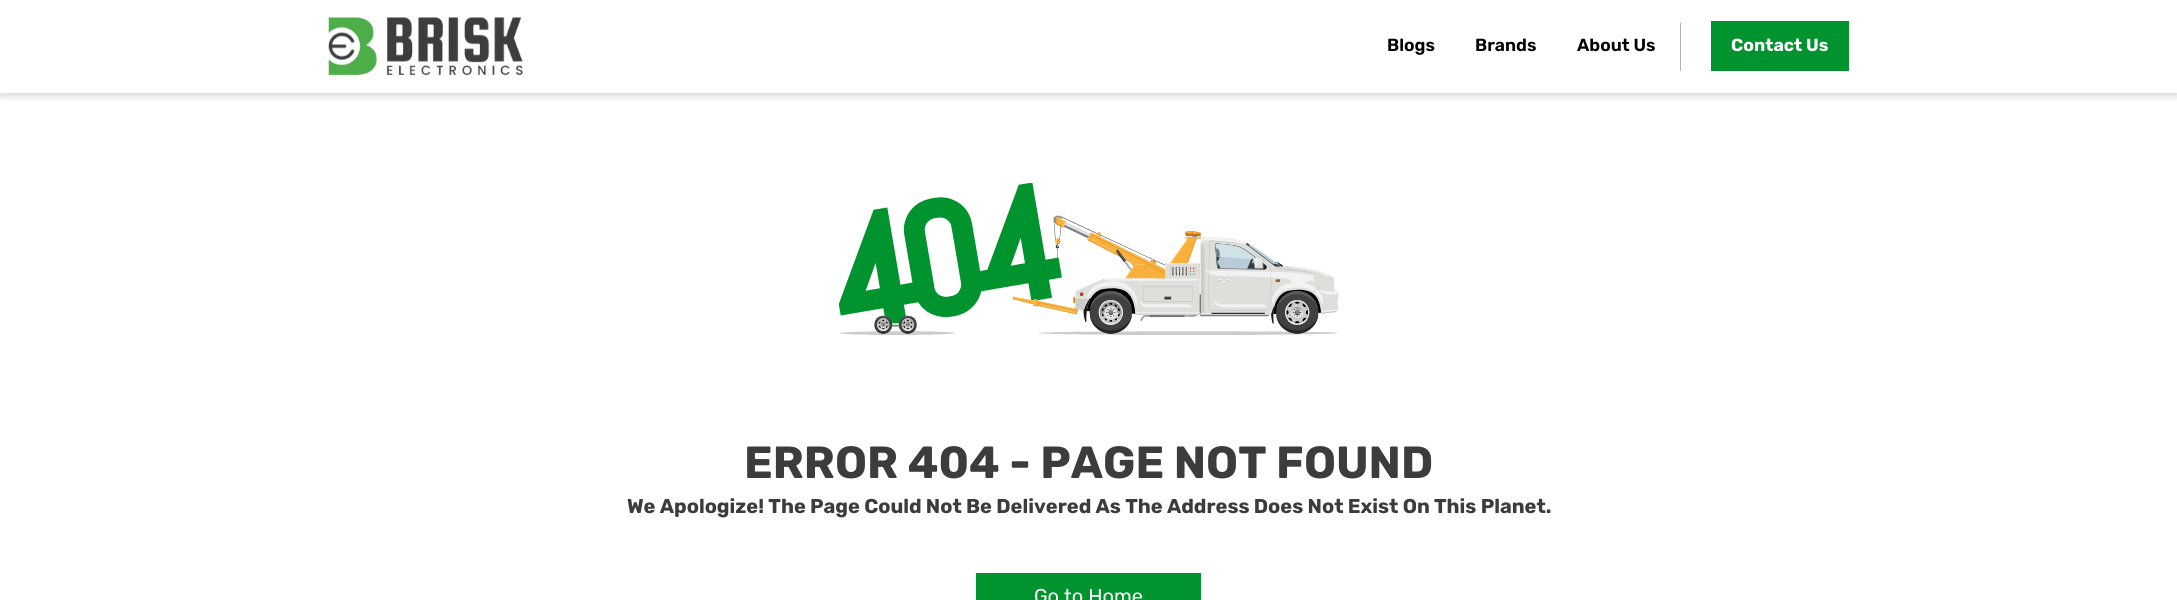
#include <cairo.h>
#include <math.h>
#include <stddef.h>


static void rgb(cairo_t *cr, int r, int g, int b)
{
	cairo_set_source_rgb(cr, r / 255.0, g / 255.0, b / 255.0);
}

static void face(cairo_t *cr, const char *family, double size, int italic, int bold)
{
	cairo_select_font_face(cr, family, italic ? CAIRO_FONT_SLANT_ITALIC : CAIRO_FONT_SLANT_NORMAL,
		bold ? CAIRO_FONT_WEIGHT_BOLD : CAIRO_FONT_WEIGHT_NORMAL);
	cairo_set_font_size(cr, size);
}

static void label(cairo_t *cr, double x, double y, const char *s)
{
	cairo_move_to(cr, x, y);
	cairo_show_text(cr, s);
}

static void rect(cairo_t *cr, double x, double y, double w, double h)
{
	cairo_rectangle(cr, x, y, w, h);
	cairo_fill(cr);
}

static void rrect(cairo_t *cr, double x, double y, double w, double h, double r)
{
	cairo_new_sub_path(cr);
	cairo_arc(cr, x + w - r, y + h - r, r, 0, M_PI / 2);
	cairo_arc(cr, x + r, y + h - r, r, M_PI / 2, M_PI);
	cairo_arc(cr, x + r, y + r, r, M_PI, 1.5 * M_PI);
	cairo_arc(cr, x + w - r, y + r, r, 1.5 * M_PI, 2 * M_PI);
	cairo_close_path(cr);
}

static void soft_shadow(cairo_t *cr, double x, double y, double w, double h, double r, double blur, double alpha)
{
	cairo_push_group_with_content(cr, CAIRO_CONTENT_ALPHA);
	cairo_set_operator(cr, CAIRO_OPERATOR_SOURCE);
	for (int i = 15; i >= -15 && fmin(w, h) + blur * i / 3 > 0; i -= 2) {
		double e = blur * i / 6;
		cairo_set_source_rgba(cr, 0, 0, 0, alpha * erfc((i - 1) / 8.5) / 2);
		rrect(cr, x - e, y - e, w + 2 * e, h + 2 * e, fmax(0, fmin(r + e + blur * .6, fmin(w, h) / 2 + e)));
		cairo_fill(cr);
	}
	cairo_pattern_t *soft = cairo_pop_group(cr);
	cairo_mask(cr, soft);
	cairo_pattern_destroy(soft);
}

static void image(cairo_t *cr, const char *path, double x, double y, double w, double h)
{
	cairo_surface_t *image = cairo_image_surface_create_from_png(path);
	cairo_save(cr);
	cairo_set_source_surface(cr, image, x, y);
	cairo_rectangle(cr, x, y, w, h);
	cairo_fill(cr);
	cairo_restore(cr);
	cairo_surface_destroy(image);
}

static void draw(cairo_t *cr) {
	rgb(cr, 255, 255, 255);
	cairo_paint(cr);
	rgb(cr, 0, 0, 0);
	soft_shadow(cr, 0, 4, 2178, 92, 0, 4, 0.16);
	rgb(cr, 255, 255, 255);
	rect(cr, 0, 0, 2177, 93);
	image(cr, "image0.png", 328, 17, 195, 58);
	face(cr, "Rubik SemiBold", 17.5, 0, 0);
	rgb(cr, 0, 0, 0);
	label(cr, 1387, 51, "Blogs");
	label(cr, 1475, 51, "Brands");
	label(cr, 1577, 51, "About Us");
	rgb(cr, 179, 179, 179);
	rect(cr, 1680, 23, 1, 48);
	rgb(cr, 229, 231, 235);
	rect(cr, 1680, 21, 1, 1);
	rgb(cr, 0, 147, 46);
	rect(cr, 1711, 21, 138, 50);
	face(cr, "Rubik", 17.5, 0, 1);
	rgb(cr, 255, 255, 255);
	label(cr, 1731, 51, "Contact Us");
	image(cr, "image1.png", 839, 183, 500, 152);
	face(cr, "Rubik", 45, 0, 1);
	rgb(cr, 60, 60, 60);
	label(cr, 744, 478, "ERROR 404 - PAGE NOT FOUND");
	face(cr, "Rubik", 20, 0, 1);
	label(cr, 627, 513, "We Apologize! The Page Could Not Be Delivered As The Address Does Not Exist On This Planet.");
	rgb(cr, 0, 147, 46);
	rect(cr, 976, 573, 225, 27);
	face(cr, "Rubik", 20, 0, 0);
	rgb(cr, 255, 255, 255);
	label(cr, 1034, 603, "Go to Home");
}

int main(void) {
	cairo_surface_t *surface = cairo_image_surface_create(CAIRO_FORMAT_RGB24, 2177, 600);
	cairo_t *cr = cairo_create(surface);
	cairo_font_options_t *options = cairo_font_options_create();
	cairo_font_options_set_hint_metrics(options, CAIRO_HINT_METRICS_OFF);
	cairo_font_options_set_hint_style(options, CAIRO_HINT_STYLE_NONE);
	cairo_set_font_options(cr, options);
	cairo_set_miter_limit(cr, 4);
	draw(cr);
	cairo_surface_write_to_png(surface, "render.png");
	cairo_font_options_destroy(options);
	cairo_destroy(cr);
	cairo_surface_destroy(surface);
	return 0;
}
